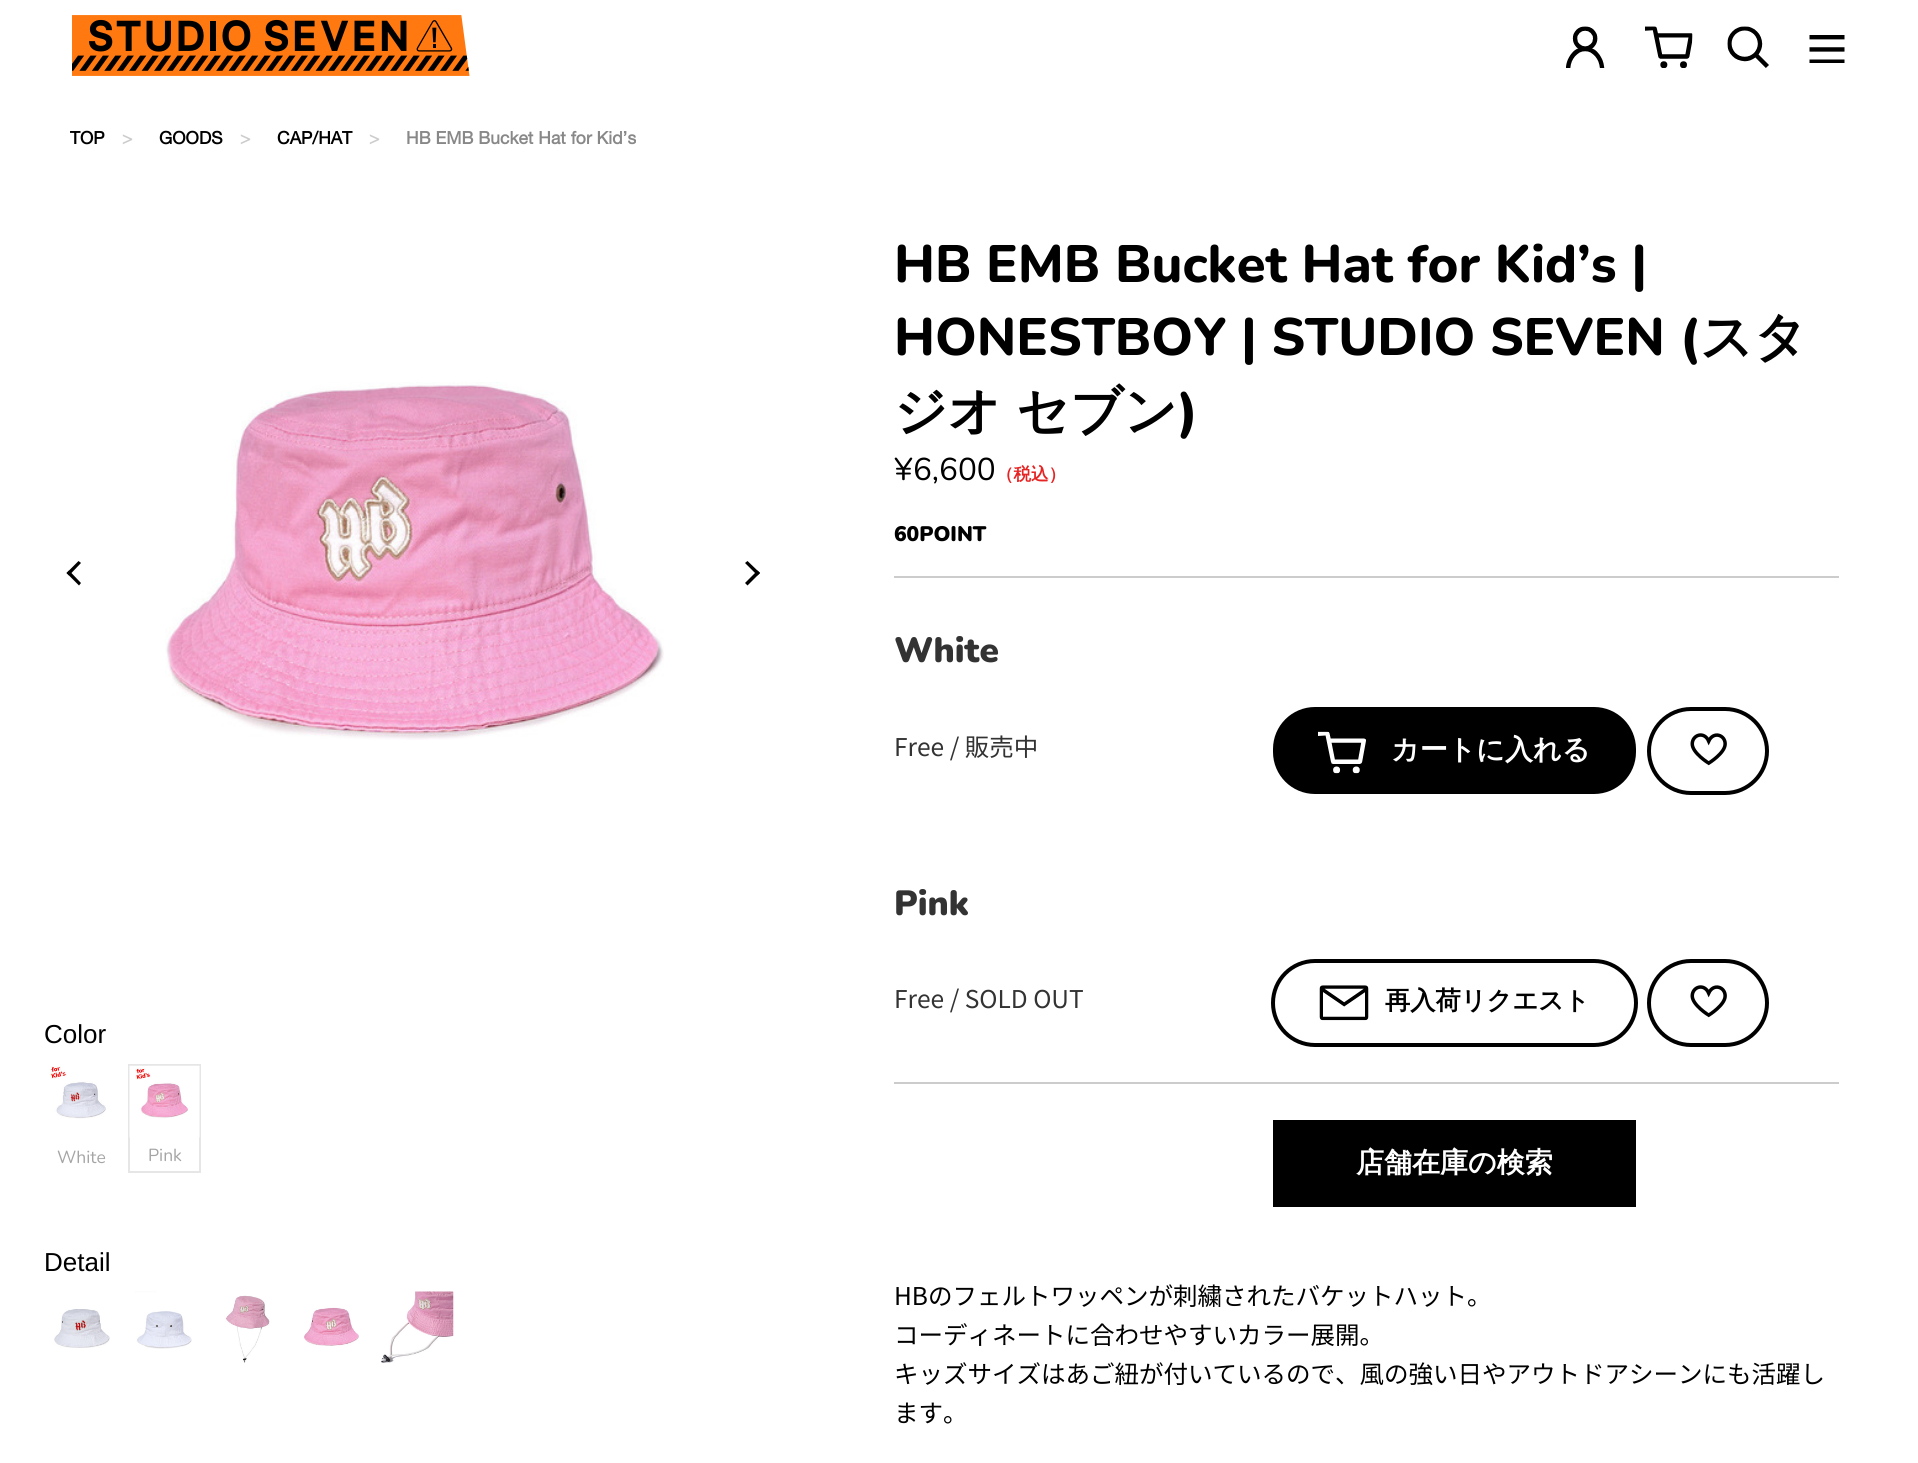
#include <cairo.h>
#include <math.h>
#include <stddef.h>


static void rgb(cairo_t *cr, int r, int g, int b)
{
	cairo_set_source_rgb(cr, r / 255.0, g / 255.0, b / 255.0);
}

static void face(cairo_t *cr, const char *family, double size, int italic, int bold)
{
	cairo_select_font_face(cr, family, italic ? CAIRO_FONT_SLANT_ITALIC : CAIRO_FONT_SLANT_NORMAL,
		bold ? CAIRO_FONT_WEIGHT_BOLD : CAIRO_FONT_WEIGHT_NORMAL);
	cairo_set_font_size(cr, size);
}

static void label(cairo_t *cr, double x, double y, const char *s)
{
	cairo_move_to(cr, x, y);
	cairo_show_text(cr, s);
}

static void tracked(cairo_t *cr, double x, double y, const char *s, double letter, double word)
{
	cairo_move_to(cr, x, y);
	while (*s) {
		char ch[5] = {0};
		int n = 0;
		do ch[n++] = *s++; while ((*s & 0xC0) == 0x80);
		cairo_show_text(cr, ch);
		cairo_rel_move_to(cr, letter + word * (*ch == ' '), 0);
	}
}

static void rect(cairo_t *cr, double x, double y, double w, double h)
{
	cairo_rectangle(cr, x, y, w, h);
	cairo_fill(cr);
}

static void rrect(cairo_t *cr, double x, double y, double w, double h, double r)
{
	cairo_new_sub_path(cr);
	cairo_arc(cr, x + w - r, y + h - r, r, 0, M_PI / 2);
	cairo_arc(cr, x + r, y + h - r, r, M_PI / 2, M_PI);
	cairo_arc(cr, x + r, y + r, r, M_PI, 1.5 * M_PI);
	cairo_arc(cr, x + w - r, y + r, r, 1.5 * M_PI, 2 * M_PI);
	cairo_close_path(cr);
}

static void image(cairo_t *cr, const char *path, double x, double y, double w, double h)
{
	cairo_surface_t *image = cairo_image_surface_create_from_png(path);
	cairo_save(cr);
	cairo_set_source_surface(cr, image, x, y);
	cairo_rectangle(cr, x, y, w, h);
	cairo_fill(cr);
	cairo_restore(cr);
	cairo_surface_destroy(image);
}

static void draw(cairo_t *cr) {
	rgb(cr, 255, 255, 255);
	cairo_paint(cr);
	image(cr, "image0.png", 72, 15, 398, 61);
	image(cr, "image1.png", 1566, 26, 39, 42);
	image(cr, "image2.png", 1645, 26, 48, 42);
	image(cr, "image3.png", 1727, 26, 42, 42);
	image(cr, "image4.png", 1809, 35, 36, 28);
	face(cr, "Helvetica Neue", 17.5, 0, 1);
	rgb(cr, 0, 0, 0);
	label(cr, 70, 144, "TOP");
	rgb(cr, 204, 204, 204);
	label(cr, 122, 144, ">");
	rgb(cr, 0, 0, 0);
	label(cr, 159, 144, "GOODS");
	rgb(cr, 204, 204, 204);
	label(cr, 240, 144, ">");
	rgb(cr, 0, 0, 0);
	label(cr, 277, 144, "CAP/HAT");
	rgb(cr, 204, 204, 204);
	label(cr, 369, 144, ">");
	rgb(cr, 136, 136, 136);
	label(cr, 406, 144, "HB EMB Bucket Hat for Kid’s");
	rgb(cr, 0, 0, 0);
	cairo_new_path(cr);
	cairo_move_to(cr, 79, 585.5);
	cairo_line_to(cr, 66.5, 573);
	cairo_line_to(cr, 69, 570.5);
	cairo_line_to(cr, 81, 583);
	cairo_close_path(cr);
	cairo_fill(cr);
	cairo_new_path(cr);
	cairo_move_to(cr, 69, 575.5);
	cairo_line_to(cr, 66.5, 573);
	cairo_line_to(cr, 78.5, 561);
	cairo_line_to(cr, 81, 563);
	cairo_close_path(cr);
	cairo_fill(cr);
	image(cr, "image5.png", 165, 382, 499, 358);
	cairo_new_path(cr);
	cairo_move_to(cr, 747.5, 561);
	cairo_line_to(cr, 760, 573);
	cairo_line_to(cr, 757.5, 575.5);
	cairo_line_to(cr, 745, 563);
	cairo_close_path(cr);
	cairo_fill(cr);
	cairo_new_path(cr);
	cairo_move_to(cr, 757.5, 570.5);
	cairo_line_to(cr, 760, 573);
	cairo_line_to(cr, 747.5, 585.5);
	cairo_line_to(cr, 745, 583);
	cairo_close_path(cr);
	cairo_fill(cr);
	face(cr, "Liberation Sans", 26, 0, 0);
	label(cr, 44, 1043, "Color");
	image(cr, "image6.png", 50, 1066, 56, 53);
	face(cr, "Nunito", 17.5, 0, 0);
	rgb(cr, 165, 165, 165);
	label(cr, 57, 1163, "White");
	cairo_rectangle(cr, 129, 1065, 71, 107);
	rgb(cr, 230, 230, 230);
	cairo_stroke(cr);
	image(cr, "image7.png", 129, 1065, 71, 73);
	rgb(cr, 165, 165, 165);
	label(cr, 148, 1161, "Pink");
	face(cr, "Liberation Sans", 26, 0, 0);
	rgb(cr, 0, 0, 0);
	label(cr, 44, 1271, "Detail");
	image(cr, "image8.png", 54, 1309, 56, 39);
	image(cr, "image9.png", 134, 1291, 58, 58);
	image(cr, "image10.png", 225, 1295, 45, 68);
	image(cr, "image11.png", 304, 1307, 55, 39);
	image(cr, "image12.png", 381, 1291, 73, 72);
	face(cr, "Nunito ExtraBold", 52.5, 0, 0);
	label(cr, 894, 282, "HB EMB Bucket Hat for Kid’s |");
	label(cr, 894, 355, "HONESTBOY | STUDIO SEVEN (");
	face(cr, "WenQuanYi Zen Hei", 52.5, 0, 1);
	label(cr, 1700, 355, "スタ");
	tracked(cr, 894, 429, "ジオ セブン", 0, -1);
	face(cr, "Nunito ExtraBold", 52.5, 0, 0);
	label(cr, 1178, 429, ")");
	face(cr, "Nunito", 31.5, 0, 0);
	label(cr, 894, 480, "¥6,600");
	face(cr, "WenQuanYi Zen Hei", 17.5, 0, 1);
	rgb(cr, 229, 36, 35);
	label(cr, 996, 480, "（税込）");
	face(cr, "Nunito Black", 21, 0, 0);
	rgb(cr, 0, 0, 0);
	label(cr, 894, 541, "60POINT");
	rgb(cr, 204, 204, 204);
	rect(cr, 894, 576, 945, 2);
	rect(cr, 894, 1082, 945, 2);
	face(cr, "Nunito Black", 35, 0, 0);
	rgb(cr, 51, 51, 51);
	label(cr, 894, 662, "White");
	face(cr, "Noto Sans JP", 24.5, 0, 0);
	label(cr, 894, 756, "Free / 販売中");
	rgb(cr, 0, 0, 0);
	rrect(cr, 1272, 706, 365, 89, 43);
	cairo_fill_preserve(cr);
	rgb(cr, 255, 255, 255);
	cairo_stroke(cr);
	image(cr, "image13.png", 1318, 731, 48, 43);
	face(cr, "WenQuanYi Zen Hei", 28, 0, 1);
	label(cr, 1391, 759, "カートに入れる");
	rrect(cr, 1649, 709, 118, 84, 42);
	rgb(cr, 0, 0, 0);
	cairo_set_line_width(cr, 4);
	cairo_stroke(cr);
	image(cr, "image14.png", 1690, 733, 37, 33);
	face(cr, "Nunito Black", 35, 0, 0);
	rgb(cr, 51, 51, 51);
	label(cr, 894, 915, "Pink");
	face(cr, "Noto Sans JP", 24.5, 0, 0);
	label(cr, 894, 1008, "Free / SOLD OUT");
	rrect(cr, 1273, 961, 363, 84, 42);
	rgb(cr, 0, 0, 0);
	cairo_stroke(cr);
	image(cr, "image15.png", 1319, 985, 50, 36);
	face(cr, "WenQuanYi Zen Hei", 25.25, 0, 1);
	label(cr, 1385, 1009, "再入荷リクエスト");
	rrect(cr, 1649, 961, 118, 84, 42);
	cairo_stroke(cr);
	image(cr, "image14.png", 1690, 985, 37, 33);
	rect(cr, 1273, 1120, 363, 87);
	face(cr, "WenQuanYi Zen Hei", 28, 0, 1);
	rgb(cr, 255, 255, 255);
	label(cr, 1356, 1172, "店舗在庫の検索");
	face(cr, "Noto Sans JP", 24.5, 0, 0);
	rgb(cr, 0, 0, 0);
	label(cr, 894, 1305, "HBのフェルトワッペンが刺繍されたバケットハット。");
	label(cr, 894, 1344, "コーディネートに合わせやすいカラー展開。");
	label(cr, 894, 1383, "キッズサイズはあご紐が付いているので、風の強い日やアウトドアシーンにも活躍し");
	label(cr, 894, 1422, "ます。");
}

int main(void) {
	cairo_surface_t *surface = cairo_image_surface_create(CAIRO_FORMAT_RGB24, 1918, 1463);
	cairo_t *cr = cairo_create(surface);
	cairo_font_options_t *options = cairo_font_options_create();
	cairo_font_options_set_hint_metrics(options, CAIRO_HINT_METRICS_OFF);
	cairo_font_options_set_hint_style(options, CAIRO_HINT_STYLE_NONE);
	cairo_set_font_options(cr, options);
	cairo_set_miter_limit(cr, 4);
	draw(cr);
	cairo_surface_write_to_png(surface, "render.png");
	cairo_font_options_destroy(options);
	cairo_destroy(cr);
	cairo_surface_destroy(surface);
	return 0;
}
